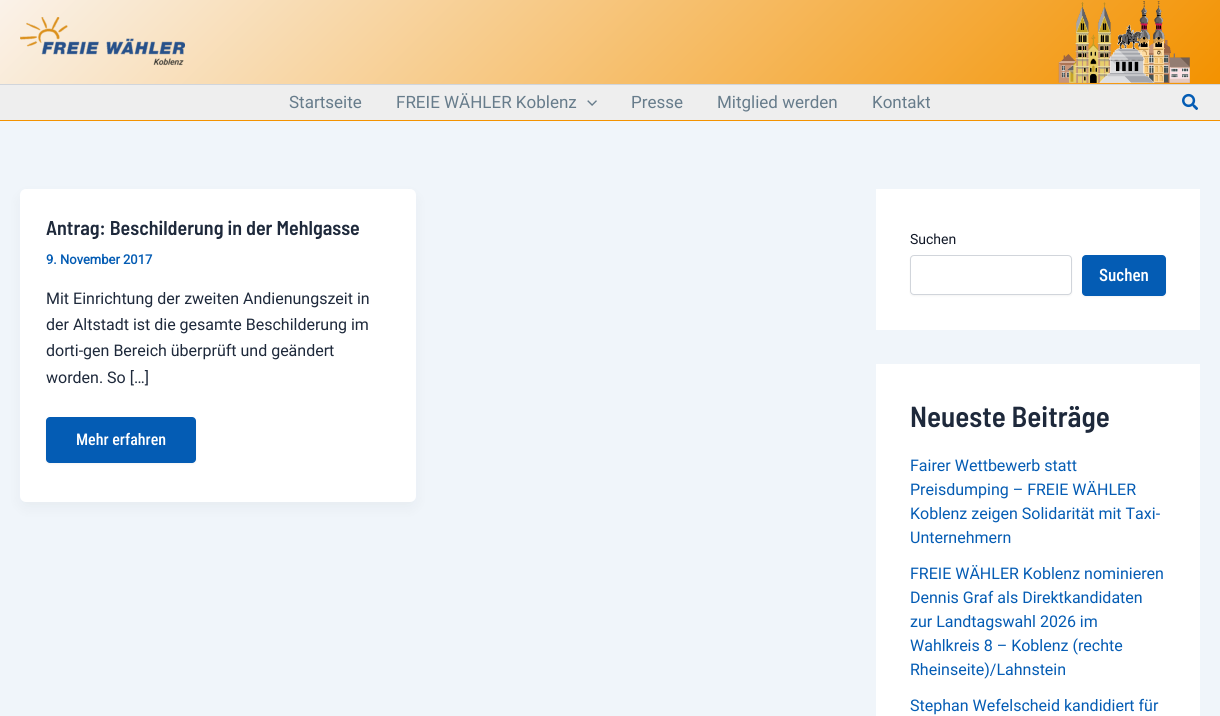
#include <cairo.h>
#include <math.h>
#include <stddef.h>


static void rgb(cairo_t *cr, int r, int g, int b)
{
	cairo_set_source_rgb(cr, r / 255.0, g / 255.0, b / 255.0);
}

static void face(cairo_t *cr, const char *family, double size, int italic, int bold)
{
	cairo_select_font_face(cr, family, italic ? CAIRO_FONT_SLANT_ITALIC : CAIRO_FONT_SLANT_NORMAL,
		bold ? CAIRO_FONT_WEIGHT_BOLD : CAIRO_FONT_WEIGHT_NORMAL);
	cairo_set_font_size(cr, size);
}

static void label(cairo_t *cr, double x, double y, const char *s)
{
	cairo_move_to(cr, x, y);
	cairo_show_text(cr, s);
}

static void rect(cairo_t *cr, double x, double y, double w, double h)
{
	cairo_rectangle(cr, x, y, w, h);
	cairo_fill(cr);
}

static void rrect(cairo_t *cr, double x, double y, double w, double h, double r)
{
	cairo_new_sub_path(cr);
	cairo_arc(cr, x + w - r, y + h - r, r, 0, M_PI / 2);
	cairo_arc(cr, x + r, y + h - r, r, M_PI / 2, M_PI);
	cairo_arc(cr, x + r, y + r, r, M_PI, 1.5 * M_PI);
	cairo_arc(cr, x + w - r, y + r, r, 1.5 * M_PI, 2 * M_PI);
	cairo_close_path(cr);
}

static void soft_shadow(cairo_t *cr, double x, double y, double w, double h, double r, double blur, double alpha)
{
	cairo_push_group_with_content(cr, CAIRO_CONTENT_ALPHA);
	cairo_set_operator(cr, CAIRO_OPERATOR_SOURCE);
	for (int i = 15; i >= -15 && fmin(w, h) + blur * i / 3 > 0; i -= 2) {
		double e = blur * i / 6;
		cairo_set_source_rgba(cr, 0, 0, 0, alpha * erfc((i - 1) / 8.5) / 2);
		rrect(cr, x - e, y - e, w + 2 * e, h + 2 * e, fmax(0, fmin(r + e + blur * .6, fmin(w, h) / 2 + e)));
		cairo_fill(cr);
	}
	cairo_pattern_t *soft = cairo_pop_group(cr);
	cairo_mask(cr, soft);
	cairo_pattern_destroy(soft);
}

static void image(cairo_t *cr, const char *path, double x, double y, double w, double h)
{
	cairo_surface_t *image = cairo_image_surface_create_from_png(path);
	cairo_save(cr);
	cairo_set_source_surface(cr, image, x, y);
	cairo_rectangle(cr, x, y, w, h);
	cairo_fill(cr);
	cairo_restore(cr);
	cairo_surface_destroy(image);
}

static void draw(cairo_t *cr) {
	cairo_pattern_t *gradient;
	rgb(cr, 240, 245, 250);
	cairo_paint(cr);
	gradient = cairo_pattern_create_linear(284, -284, 936, 368);
	cairo_pattern_add_color_stop_rgba(gradient, 0, 0.98, 0.949, 0.914, 1);
	cairo_pattern_add_color_stop_rgba(gradient, 1, 0.953, 0.573, 0, 1);
	cairo_set_source(cr, gradient);
	cairo_pattern_destroy(gradient);
	rect(cr, 0, 0, 1220, 84);
	rgb(cr, 209, 213, 219);
	rect(cr, 0, 84, 1220, 1);
	image(cr, "image0.png", 20, 17, 165, 49);
	image(cr, "image1.png", 1058, 1, 132, 82);
	rgb(cr, 238, 238, 238);
	rect(cr, 0, 85, 1220, 35);
	rgb(cr, 243, 146, 0);
	rect(cr, 0, 120, 1220, 1);
	face(cr, "Roboto", 17, 0, 0);
	rgb(cr, 103, 124, 139);
	label(cr, 289, 108, "Startseite");
	label(cr, 396, 108, "FREIE WÄHLER Koblenz");
	image(cr, "image2.png", 587, 100, 10, 6);
	label(cr, 631, 108, "Presse");
	label(cr, 717, 108, "Mitglied werden");
	label(cr, 872, 108, "Kontakt");
	image(cr, "image3.png", 1182, 93, 16, 17);
	rgb(cr, 16, 24, 40);
	soft_shadow(cr, 22, 197, 392, 309, 4, 7.5, 0.05);
	rgb(cr, 255, 255, 255);
	rrect(cr, 20, 189, 396, 313, 6);
	cairo_fill(cr);
	face(cr, "Barlow Semi Condensed SemiBold", 20, 0, 0);
	rgb(cr, 30, 41, 59);
	label(cr, 46, 235, "Antrag: Beschilderung in der Mehlgasse");
	face(cr, "Roboto", 13, 0, 1);
	rgb(cr, 4, 92, 180);
	label(cr, 46, 264, "9. November 2017");
	face(cr, "Roboto", 16, 0, 0);
	rgb(cr, 30, 41, 59);
	label(cr, 46, 304, "Mit Einrichtung der zweiten Andienungszeit in");
	label(cr, 46, 330, "der Altstadt ist die gesamte Beschilderung im");
	label(cr, 46, 356, "dorti-gen Bereich überprüft und geändert");
	label(cr, 46, 383, "worden. So […]");
	rgb(cr, 0, 0, 0);
	soft_shadow(cr, 46, 418, 150, 46, 4, 1, 0.05);
	rgb(cr, 4, 92, 180);
	rrect(cr, 46, 417, 150, 46, 4);
	cairo_fill(cr);
	face(cr, "Roboto Condensed Medium", 16, 0, 0);
	rgb(cr, 255, 255, 255);
	label(cr, 76, 445, "Mehr erfahren");
	rect(cr, 876, 189, 324, 141);
	face(cr, "Roboto", 14, 0, 0);
	rgb(cr, 17, 24, 39);
	label(cr, 910, 244, "Suchen");
	rgb(cr, 0, 0, 0);
	soft_shadow(cr, 910, 256, 162, 40, 4, 1, 0.05);
	rgb(cr, 255, 255, 255);
	rrect(cr, 910.5, 255.5, 161, 39, 3.5);
	cairo_fill_preserve(cr);
	rgb(cr, 209, 213, 219);
	cairo_set_line_width(cr, 1);
	cairo_stroke(cr);
	rgb(cr, 0, 0, 0);
	soft_shadow(cr, 1082, 256, 84, 41, 4, 1, 0.05);
	rgb(cr, 4, 92, 180);
	rrect(cr, 1082, 255, 84, 41, 4);
	cairo_fill(cr);
	face(cr, "Roboto Condensed Medium", 17, 0, 0);
	rgb(cr, 255, 255, 255);
	label(cr, 1099, 281, "Suchen");
	rect(cr, 876, 364, 324, 352);
	face(cr, "Barlow Semi Condensed SemiBold", 29, 0, 0);
	rgb(cr, 30, 41, 59);
	label(cr, 910, 427, "Neueste Beiträge");
	face(cr, "Roboto", 16, 0, 0);
	rgb(cr, 4, 92, 180);
	label(cr, 910, 471, "Fairer Wettbewerb statt");
	label(cr, 910, 495, "Preisdumping – FREIE WÄHLER");
	label(cr, 910, 519, "Koblenz zeigen Solidarität mit Taxi-");
	label(cr, 910, 543, "Unternehmern");
	label(cr, 910, 579, "FREIE WÄHLER Koblenz nominieren");
	label(cr, 910, 603, "Dennis Graf als Direktkandidaten");
	label(cr, 910, 627, "zur Landtagswahl 2026 im");
	label(cr, 910, 651, "Wahlkreis 8 – Koblenz (rechte");
	label(cr, 910, 675, "Rheinseite)/Lahnstein");
	label(cr, 910, 711, "Stephan Wefelscheid kandidiert für");
}

int main(void) {
	cairo_surface_t *surface = cairo_image_surface_create(CAIRO_FORMAT_RGB24, 1220, 716);
	cairo_t *cr = cairo_create(surface);
	cairo_font_options_t *options = cairo_font_options_create();
	cairo_font_options_set_hint_metrics(options, CAIRO_HINT_METRICS_OFF);
	cairo_font_options_set_hint_style(options, CAIRO_HINT_STYLE_NONE);
	cairo_set_font_options(cr, options);
	cairo_set_miter_limit(cr, 4);
	draw(cr);
	cairo_surface_write_to_png(surface, "render.png");
	cairo_font_options_destroy(options);
	cairo_destroy(cr);
	cairo_surface_destroy(surface);
	return 0;
}
